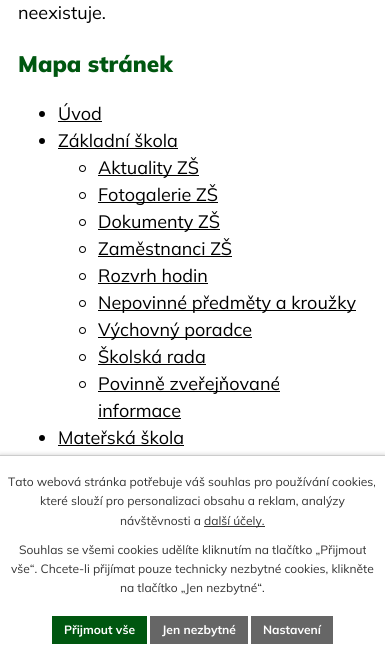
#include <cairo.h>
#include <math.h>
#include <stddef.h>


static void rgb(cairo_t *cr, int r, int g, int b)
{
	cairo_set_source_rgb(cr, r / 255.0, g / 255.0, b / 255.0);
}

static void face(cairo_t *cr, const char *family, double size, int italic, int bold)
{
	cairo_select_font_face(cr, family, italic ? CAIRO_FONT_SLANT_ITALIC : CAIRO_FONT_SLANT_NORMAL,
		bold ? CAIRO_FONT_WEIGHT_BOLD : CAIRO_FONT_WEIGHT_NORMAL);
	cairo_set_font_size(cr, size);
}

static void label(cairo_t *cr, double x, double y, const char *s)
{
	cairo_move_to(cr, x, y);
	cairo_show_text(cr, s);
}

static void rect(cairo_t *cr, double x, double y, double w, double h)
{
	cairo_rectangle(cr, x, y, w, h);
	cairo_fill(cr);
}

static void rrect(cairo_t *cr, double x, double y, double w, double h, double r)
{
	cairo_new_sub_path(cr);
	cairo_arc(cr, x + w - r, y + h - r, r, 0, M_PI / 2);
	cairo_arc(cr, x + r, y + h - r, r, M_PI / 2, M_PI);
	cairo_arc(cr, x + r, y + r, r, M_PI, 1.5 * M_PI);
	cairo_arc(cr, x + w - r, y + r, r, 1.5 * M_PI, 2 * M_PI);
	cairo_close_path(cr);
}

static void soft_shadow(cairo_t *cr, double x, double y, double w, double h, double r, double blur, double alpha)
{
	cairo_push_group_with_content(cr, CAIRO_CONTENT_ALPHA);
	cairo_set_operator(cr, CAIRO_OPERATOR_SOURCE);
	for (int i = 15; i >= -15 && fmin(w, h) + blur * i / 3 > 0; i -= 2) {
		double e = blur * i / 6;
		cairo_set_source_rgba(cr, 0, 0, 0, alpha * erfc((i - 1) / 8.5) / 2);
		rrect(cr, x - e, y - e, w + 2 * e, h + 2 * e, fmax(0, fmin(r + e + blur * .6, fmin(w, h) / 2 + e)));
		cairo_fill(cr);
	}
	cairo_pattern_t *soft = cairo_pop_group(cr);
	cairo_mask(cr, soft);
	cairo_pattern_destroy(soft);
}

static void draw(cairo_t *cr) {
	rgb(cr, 255, 255, 255);
	cairo_paint(cr);
	face(cr, "Mulish", 18, 0, 0);
	rgb(cr, 0, 0, 0);
	label(cr, 18, 19, "neexistuje.");
	face(cr, "Mulish Black", 22.5, 0, 0);
	rgb(cr, 0, 87, 16);
	label(cr, 18, 72, "Mapa stránek");
	rgb(cr, 0, 0, 0);
	cairo_new_path(cr);
	cairo_arc(cr, 42, 114, 3, 0, 2 * M_PI);
	cairo_fill(cr);
	face(cr, "Mulish", 18, 0, 0);
	label(cr, 58, 120, "Úvod");
	rect(cr, 58, 121, 44, 1);
	cairo_new_path(cr);
	cairo_arc(cr, 42, 141, 3, 0, 2 * M_PI);
	cairo_fill(cr);
	label(cr, 58, 147, "Základní škola");
	rect(cr, 58, 148, 120, 1);
	cairo_new_path(cr);
	cairo_arc(cr, 82.5, 168.5, 3, 0, 2 * M_PI);
	cairo_set_line_width(cr, 1);
	cairo_stroke(cr);
	rect(cr, 98, 175, 101, 1);
	label(cr, 98, 174, "Aktuality ZŠ");
	cairo_new_path(cr);
	cairo_arc(cr, 82.5, 195.5, 3, 0, 2 * M_PI);
	cairo_stroke(cr);
	rect(cr, 98, 202, 120, 1);
	label(cr, 98, 201, "Fotogalerie ZŠ");
	cairo_new_path(cr);
	cairo_arc(cr, 82.5, 222.5, 3, 0, 2 * M_PI);
	cairo_stroke(cr);
	rect(cr, 98, 229, 122, 1);
	label(cr, 98, 228, "Dokumenty ZŠ");
	cairo_new_path(cr);
	cairo_arc(cr, 82.5, 249.5, 3, 0, 2 * M_PI);
	cairo_stroke(cr);
	label(cr, 98, 255, "Zaměstnanci ZŠ");
	rect(cr, 98, 256, 134, 1);
	cairo_new_path(cr);
	cairo_arc(cr, 82.5, 276.5, 3, 0, 2 * M_PI);
	cairo_stroke(cr);
	label(cr, 98, 282, "Rozvrh hodin");
	rect(cr, 98, 283, 110, 1);
	cairo_new_path(cr);
	cairo_arc(cr, 82.5, 303.5, 3, 0, 2 * M_PI);
	cairo_stroke(cr);
	rect(cr, 98, 310, 258, 1);
	label(cr, 98, 309, "Nepovinné předměty a kroužky");
	cairo_new_path(cr);
	cairo_arc(cr, 82.5, 330.5, 3, 0, 2 * M_PI);
	cairo_stroke(cr);
	rect(cr, 98, 337, 154, 1);
	label(cr, 98, 336, "Výchovný poradce");
	cairo_new_path(cr);
	cairo_arc(cr, 82.5, 357.5, 3, 0, 2 * M_PI);
	cairo_stroke(cr);
	label(cr, 98, 363, "Školská rada");
	rect(cr, 98, 364, 108, 1);
	cairo_new_path(cr);
	cairo_arc(cr, 82.5, 384.5, 3, 0, 2 * M_PI);
	cairo_stroke(cr);
	rect(cr, 98, 391, 182, 1);
	label(cr, 98, 390, "Povinně zveřejňované");
	label(cr, 98, 417, "informace");
	rect(cr, 98, 418, 83, 1);
	cairo_new_path(cr);
	cairo_arc(cr, 42, 438, 3, 0, 2 * M_PI);
	cairo_fill(cr);
	label(cr, 58, 444, "Mateřská škola");
	rect(cr, 58, 445, 126, 1);
	rgb(cr, 0, 0, 0);
	soft_shadow(cr, 0, 455, 385, 204, 0, 2.5, 0.2);
	rgb(cr, 255, 255, 255);
	rect(cr, 0, 456, 385, 203);
	rgb(cr, 204, 204, 204);
	rect(cr, 0, 455, 385, 1);
	face(cr, "Mulish", 12, 0, 0);
	rgb(cr, 51, 51, 51);
	label(cr, 8, 486, "Tato webová stránka potřebuje váš souhlas pro používání cookies,");
	label(cr, 40, 505, "které slouží pro personalizaci obsahu a reklam, analýzy");
	label(cr, 120, 525, "návštěvnosti a");
	rect(cr, 204, 526, 61, 1);
	label(cr, 204, 525, "další účely.");
	label(cr, 19, 554, "Souhlas se všemi cookies udělíte kliknutím na tlačítko „Přijmout");
	label(cr, 11, 573, "vše“. Chcete-li přijímat pouze technicky nezbytné cookies, klikněte");
	label(cr, 120, 592, "na tlačítko „Jen nezbytné“.");
	rgb(cr, 0, 87, 16);
	rect(cr, 52, 616, 95, 28);
	face(cr, "Mulish", 12, 0, 1);
	rgb(cr, 255, 255, 255);
	label(cr, 64, 634, "Přijmout vše");
	rgb(cr, 102, 102, 102);
	rect(cr, 150, 616, 98, 28);
	rgb(cr, 255, 255, 255);
	label(cr, 162, 634, "Jen nezbytné");
	rgb(cr, 102, 102, 102);
	rect(cr, 251, 616, 82, 28);
	rgb(cr, 255, 255, 255);
	label(cr, 263, 634, "Nastavení");
}

int main(void) {
	cairo_surface_t *surface = cairo_image_surface_create(CAIRO_FORMAT_RGB24, 385, 659);
	cairo_t *cr = cairo_create(surface);
	cairo_font_options_t *options = cairo_font_options_create();
	cairo_font_options_set_hint_metrics(options, CAIRO_HINT_METRICS_OFF);
	cairo_font_options_set_hint_style(options, CAIRO_HINT_STYLE_NONE);
	cairo_set_font_options(cr, options);
	cairo_set_miter_limit(cr, 4);
	draw(cr);
	cairo_surface_write_to_png(surface, "render.png");
	cairo_font_options_destroy(options);
	cairo_destroy(cr);
	cairo_surface_destroy(surface);
	return 0;
}
